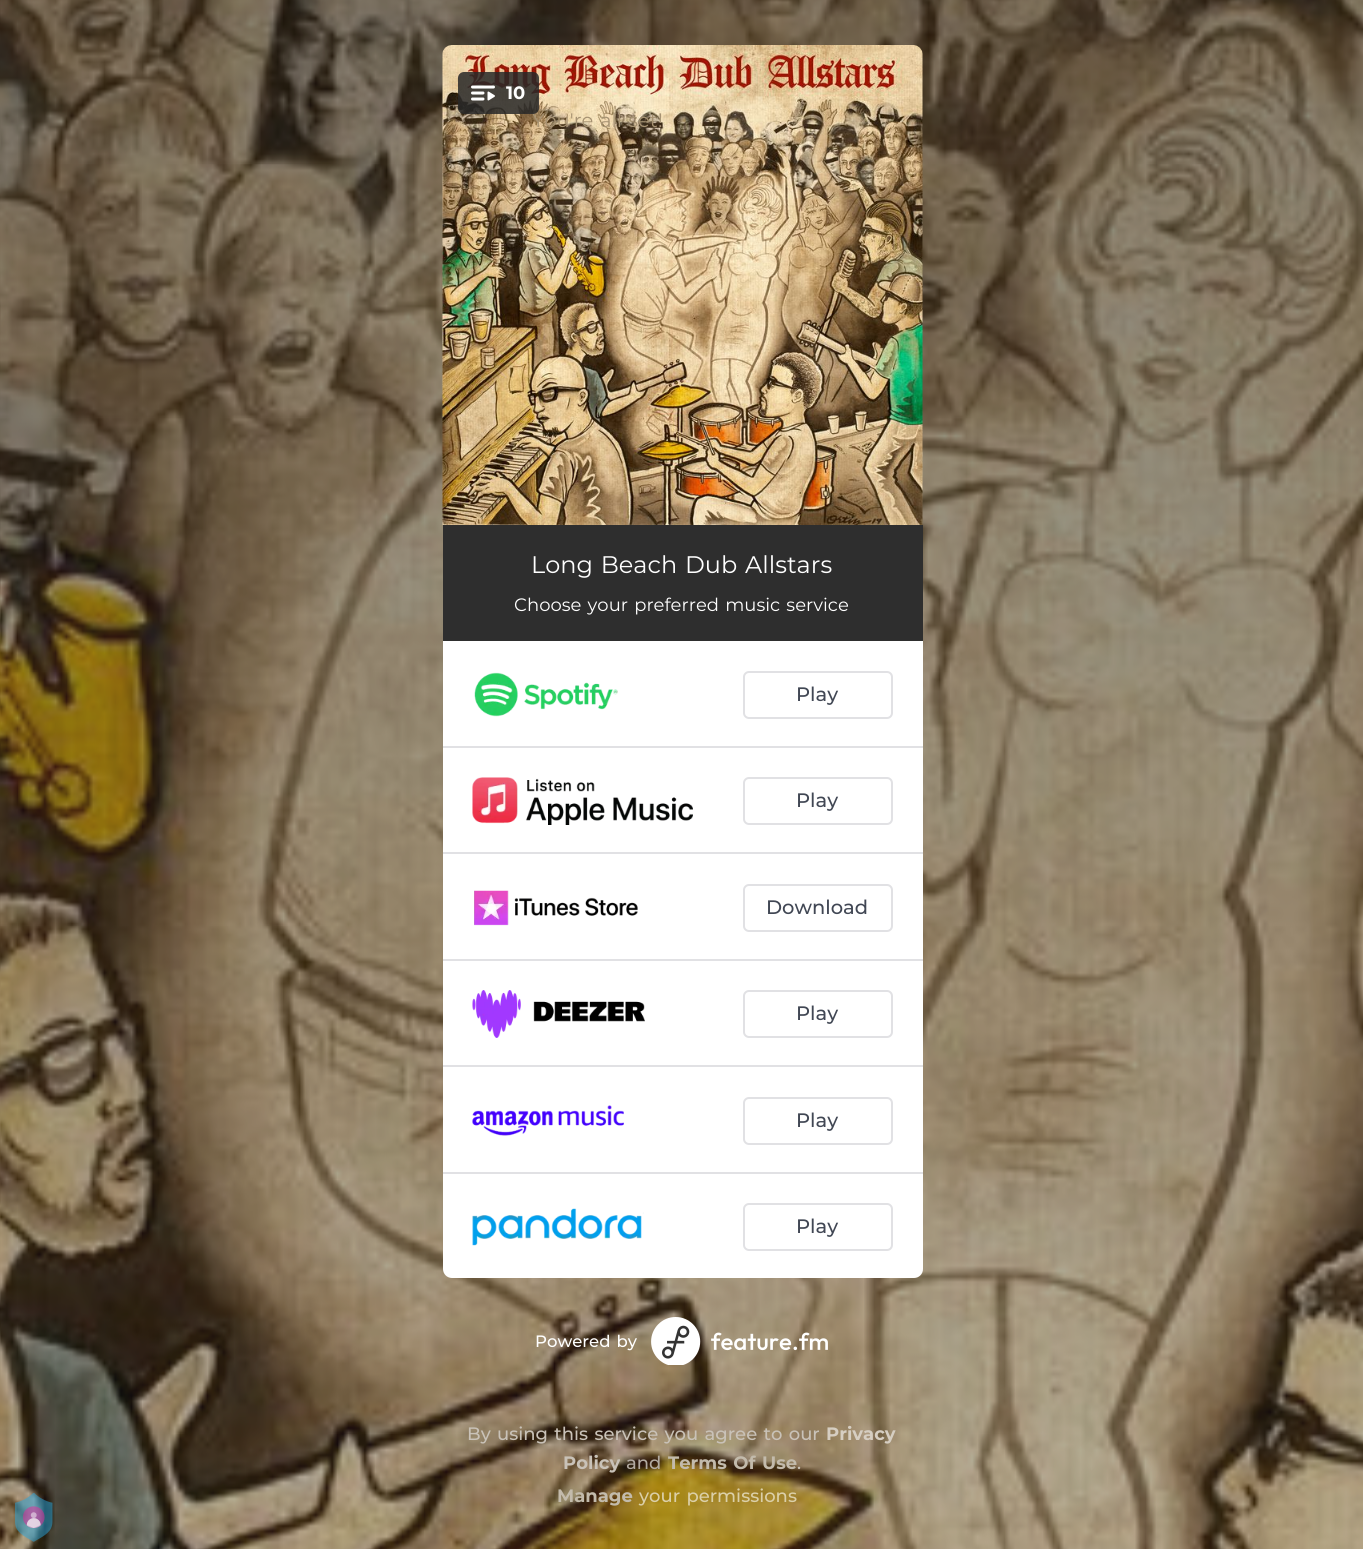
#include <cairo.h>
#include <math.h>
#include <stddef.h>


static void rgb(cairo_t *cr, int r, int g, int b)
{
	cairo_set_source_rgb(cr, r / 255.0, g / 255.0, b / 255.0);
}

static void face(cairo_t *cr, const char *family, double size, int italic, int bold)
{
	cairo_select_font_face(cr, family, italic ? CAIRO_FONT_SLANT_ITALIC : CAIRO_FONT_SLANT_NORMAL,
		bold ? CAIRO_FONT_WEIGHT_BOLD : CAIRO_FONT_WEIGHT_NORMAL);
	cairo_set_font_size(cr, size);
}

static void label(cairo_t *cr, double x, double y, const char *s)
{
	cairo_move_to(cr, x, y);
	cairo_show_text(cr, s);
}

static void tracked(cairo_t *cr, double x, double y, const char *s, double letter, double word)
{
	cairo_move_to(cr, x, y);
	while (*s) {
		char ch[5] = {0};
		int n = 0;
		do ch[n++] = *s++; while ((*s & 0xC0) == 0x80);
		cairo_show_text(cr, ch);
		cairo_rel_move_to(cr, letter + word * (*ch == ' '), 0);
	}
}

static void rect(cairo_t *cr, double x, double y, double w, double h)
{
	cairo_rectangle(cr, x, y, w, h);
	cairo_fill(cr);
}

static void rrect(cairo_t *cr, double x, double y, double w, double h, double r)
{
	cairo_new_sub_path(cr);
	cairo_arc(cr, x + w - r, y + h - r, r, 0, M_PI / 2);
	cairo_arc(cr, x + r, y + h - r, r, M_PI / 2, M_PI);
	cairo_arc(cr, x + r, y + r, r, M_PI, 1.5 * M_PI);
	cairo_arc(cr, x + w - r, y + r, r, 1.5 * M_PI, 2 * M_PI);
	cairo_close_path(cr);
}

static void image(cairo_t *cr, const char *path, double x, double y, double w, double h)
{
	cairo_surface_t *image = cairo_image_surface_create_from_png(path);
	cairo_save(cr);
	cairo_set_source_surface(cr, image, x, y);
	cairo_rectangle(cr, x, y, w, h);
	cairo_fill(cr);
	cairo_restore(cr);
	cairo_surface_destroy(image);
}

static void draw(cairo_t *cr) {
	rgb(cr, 255, 255, 255);
	cairo_paint(cr);
	image(cr, "image0.png", 0, 0, 1363, 1549);
	image(cr, "image1.png", 442, 45, 481, 480);
	face(cr, "Montserrat", 19.5, 0, 0);
	rgb(cr, 166, 146, 114);
	tracked(cr, 532, 127, "You're all set!", 0, 1.5);
	cairo_set_source_rgba(cr, 0.157, 0.157, 0.157, 0.85);
	rrect(cr, 458, 72, 81, 42, 6);
	cairo_fill(cr);
	image(cr, "image2.png", 471, 85, 24, 16);
	face(cr, "Montserrat", 18, 0, 1);
	rgb(cr, 255, 255, 255);
	label(cr, 506, 99, "10");
	rgb(cr, 46, 46, 46);
	rect(cr, 443, 525, 480, 116);
	face(cr, "Montserrat", 24, 0, 0);
	rgb(cr, 255, 255, 255);
	tracked(cr, 531, 573, "Long Beach Dub Allstars", 0, 1.5);
	face(cr, "Montserrat", 18, 0, 0);
	tracked(cr, 514, 611, "Choose your preferred music service", 0, 1.5);
	cairo_new_path(cr);
	cairo_move_to(cr, 443, 641);
	cairo_line_to(cr, 923, 641);
	cairo_line_to(cr, 923, 1269);
	cairo_curve_to(cr, 923, 1274, 919, 1278, 914, 1278);
	cairo_line_to(cr, 452, 1278);
	cairo_curve_to(cr, 447, 1278, 443, 1274, 443, 1269);
	cairo_close_path(cr);
	cairo_fill(cr);
	rgb(cr, 225, 225, 228);
	rect(cr, 443, 746, 480, 2);
	image(cr, "image3.png", 474, 672, 144, 45);
	rrect(cr, 744, 672, 148, 46, 5);
	cairo_stroke(cr);
	face(cr, "Montserrat Medium", 19.5, 0, 0);
	rgb(cr, 65, 71, 84);
	label(cr, 796, 701, "Play");
	rgb(cr, 225, 225, 228);
	rect(cr, 443, 852, 480, 2);
	image(cr, "image4.png", 472, 777, 221, 48);
	rrect(cr, 744, 778, 148, 46, 5);
	cairo_stroke(cr);
	rgb(cr, 65, 71, 84);
	label(cr, 796, 807, "Play");
	rgb(cr, 225, 225, 228);
	rect(cr, 443, 959, 480, 2);
	image(cr, "image5.png", 474, 890, 164, 36);
	rrect(cr, 744, 885, 148, 46, 5);
	cairo_stroke(cr);
	rgb(cr, 65, 71, 84);
	label(cr, 766, 914, "Download");
	rgb(cr, 225, 225, 228);
	rect(cr, 443, 1065, 480, 2);
	image(cr, "image6.png", 472, 990, 173, 48);
	rrect(cr, 744, 991, 148, 46, 5);
	cairo_stroke(cr);
	rgb(cr, 65, 71, 84);
	label(cr, 796, 1020, "Play");
	rgb(cr, 225, 225, 228);
	rect(cr, 443, 1172, 480, 2);
	image(cr, "image7.png", 472, 1105, 152, 31);
	rrect(cr, 744, 1098, 148, 46, 5);
	cairo_stroke(cr);
	rgb(cr, 65, 71, 84);
	label(cr, 796, 1127, "Play");
	image(cr, "image8.png", 472, 1208, 172, 38);
	rrect(cr, 744, 1204, 148, 46, 5);
	rgb(cr, 225, 225, 228);
	cairo_stroke(cr);
	rgb(cr, 65, 71, 84);
	label(cr, 796, 1233, "Play");
	face(cr, "Montserrat Medium", 16.5, 0, 0);
	rgb(cr, 255, 255, 255);
	tracked(cr, 535, 1347, "Powered by", 0, 1.5);
	image(cr, "image9.png", 651, 1317, 177, 48);
	face(cr, "Montserrat Medium", 18, 0, 0);
	rgb(cr, 201, 194, 184);
	tracked(cr, 467, 1440, "By using this service you agree to our", 0, 1.5);
	face(cr, "Montserrat", 18, 0, 1);
	rgb(cr, 214, 206, 194);
	label(cr, 826, 1440, "Privacy");
	rgb(cr, 201, 194, 184);
	label(cr, 563, 1469, "Policy");
	face(cr, "Montserrat Medium", 18, 0, 0);
	rgb(cr, 178, 170, 161);
	label(cr, 626, 1469, "and");
	face(cr, "Montserrat", 18, 0, 1);
	rgb(cr, 195, 187, 172);
	tracked(cr, 668, 1469, "Terms Of Use", 0, 1.5);
	face(cr, "Montserrat Medium", 18, 0, 0);
	rgb(cr, 201, 194, 184);
	label(cr, 797, 1469, ".");
	face(cr, "Montserrat", 18, 0, 1);
	rgb(cr, 195, 187, 172);
	label(cr, 557, 1502, "Manage");
	face(cr, "Montserrat Medium", 18, 0, 0);
	rgb(cr, 219, 207, 168);
	tracked(cr, 639, 1502, "your permissions", 0, 1.5);
	image(cr, "image10.png", 15, 1493, 38, 49);
}

int main(void) {
	cairo_surface_t *surface = cairo_image_surface_create(CAIRO_FORMAT_RGB24, 1363, 1549);
	cairo_t *cr = cairo_create(surface);
	cairo_font_options_t *options = cairo_font_options_create();
	cairo_font_options_set_hint_metrics(options, CAIRO_HINT_METRICS_OFF);
	cairo_font_options_set_hint_style(options, CAIRO_HINT_STYLE_NONE);
	cairo_set_font_options(cr, options);
	cairo_set_miter_limit(cr, 4);
	draw(cr);
	cairo_surface_write_to_png(surface, "render.png");
	cairo_font_options_destroy(options);
	cairo_destroy(cr);
	cairo_surface_destroy(surface);
	return 0;
}
